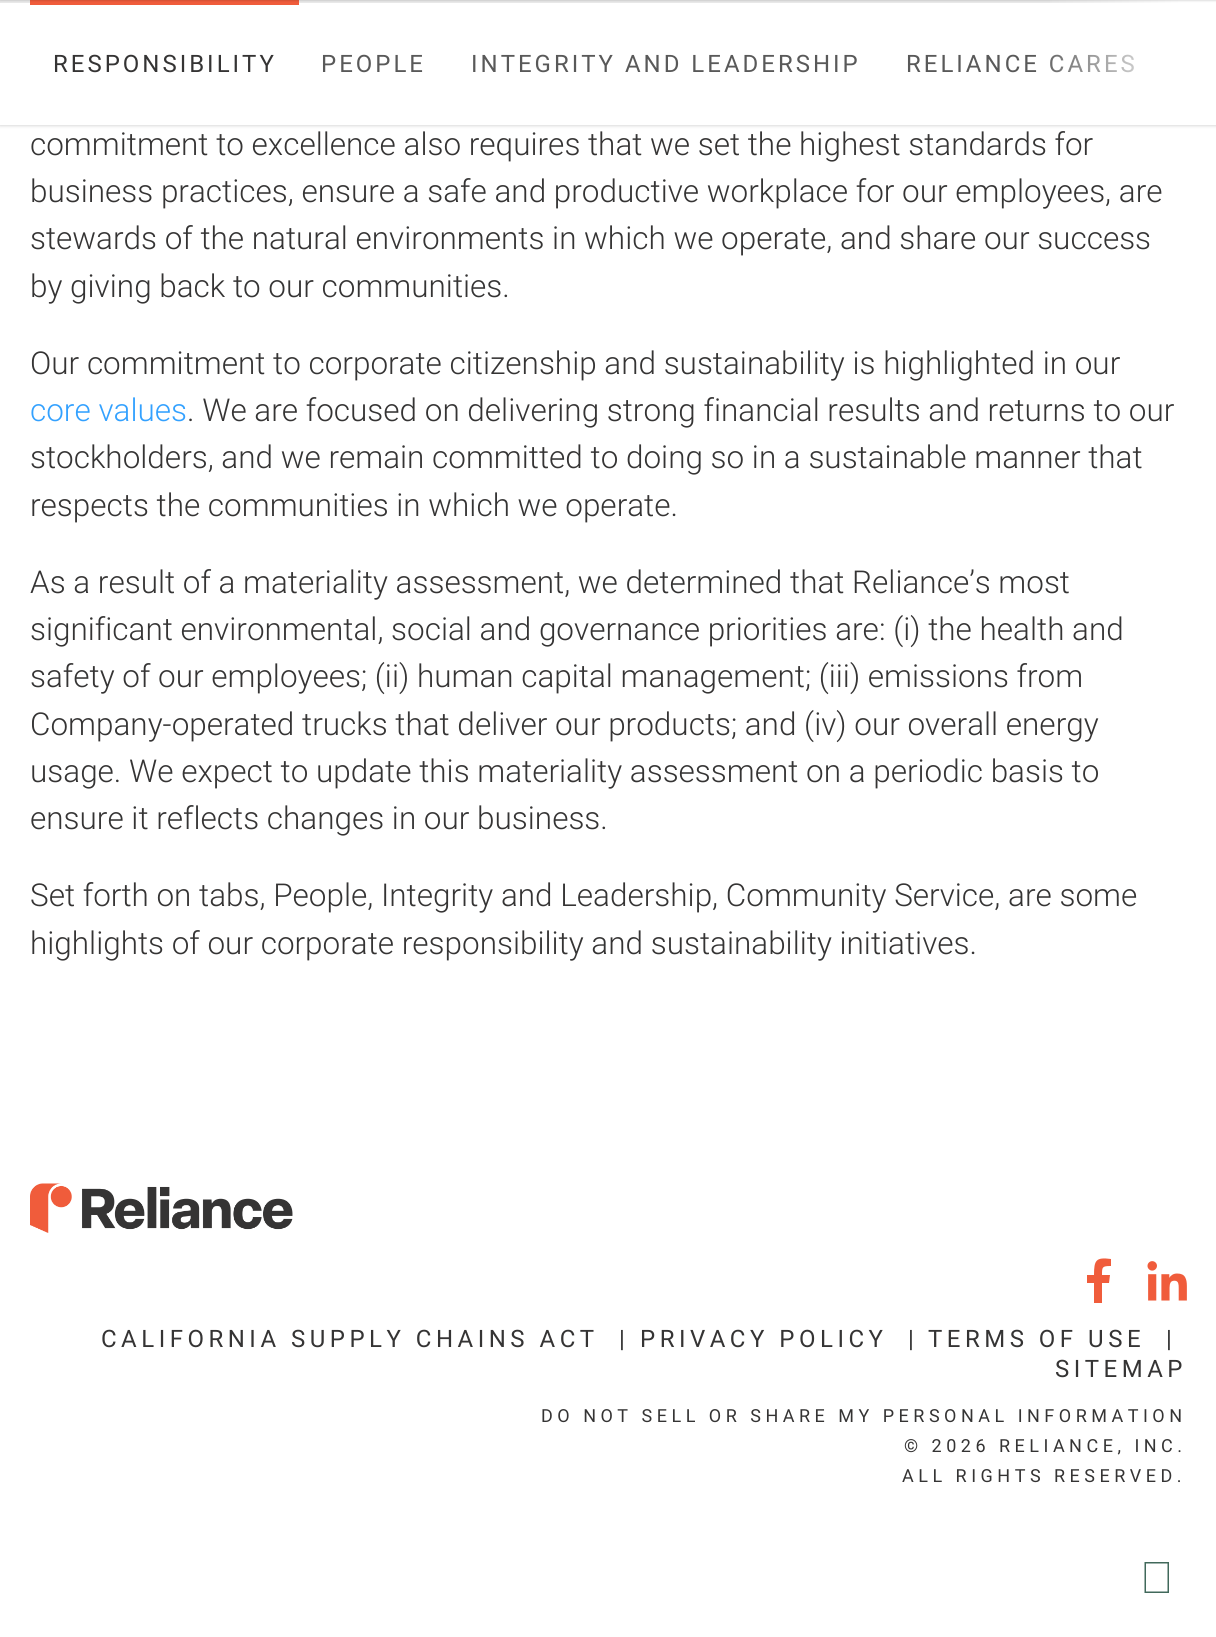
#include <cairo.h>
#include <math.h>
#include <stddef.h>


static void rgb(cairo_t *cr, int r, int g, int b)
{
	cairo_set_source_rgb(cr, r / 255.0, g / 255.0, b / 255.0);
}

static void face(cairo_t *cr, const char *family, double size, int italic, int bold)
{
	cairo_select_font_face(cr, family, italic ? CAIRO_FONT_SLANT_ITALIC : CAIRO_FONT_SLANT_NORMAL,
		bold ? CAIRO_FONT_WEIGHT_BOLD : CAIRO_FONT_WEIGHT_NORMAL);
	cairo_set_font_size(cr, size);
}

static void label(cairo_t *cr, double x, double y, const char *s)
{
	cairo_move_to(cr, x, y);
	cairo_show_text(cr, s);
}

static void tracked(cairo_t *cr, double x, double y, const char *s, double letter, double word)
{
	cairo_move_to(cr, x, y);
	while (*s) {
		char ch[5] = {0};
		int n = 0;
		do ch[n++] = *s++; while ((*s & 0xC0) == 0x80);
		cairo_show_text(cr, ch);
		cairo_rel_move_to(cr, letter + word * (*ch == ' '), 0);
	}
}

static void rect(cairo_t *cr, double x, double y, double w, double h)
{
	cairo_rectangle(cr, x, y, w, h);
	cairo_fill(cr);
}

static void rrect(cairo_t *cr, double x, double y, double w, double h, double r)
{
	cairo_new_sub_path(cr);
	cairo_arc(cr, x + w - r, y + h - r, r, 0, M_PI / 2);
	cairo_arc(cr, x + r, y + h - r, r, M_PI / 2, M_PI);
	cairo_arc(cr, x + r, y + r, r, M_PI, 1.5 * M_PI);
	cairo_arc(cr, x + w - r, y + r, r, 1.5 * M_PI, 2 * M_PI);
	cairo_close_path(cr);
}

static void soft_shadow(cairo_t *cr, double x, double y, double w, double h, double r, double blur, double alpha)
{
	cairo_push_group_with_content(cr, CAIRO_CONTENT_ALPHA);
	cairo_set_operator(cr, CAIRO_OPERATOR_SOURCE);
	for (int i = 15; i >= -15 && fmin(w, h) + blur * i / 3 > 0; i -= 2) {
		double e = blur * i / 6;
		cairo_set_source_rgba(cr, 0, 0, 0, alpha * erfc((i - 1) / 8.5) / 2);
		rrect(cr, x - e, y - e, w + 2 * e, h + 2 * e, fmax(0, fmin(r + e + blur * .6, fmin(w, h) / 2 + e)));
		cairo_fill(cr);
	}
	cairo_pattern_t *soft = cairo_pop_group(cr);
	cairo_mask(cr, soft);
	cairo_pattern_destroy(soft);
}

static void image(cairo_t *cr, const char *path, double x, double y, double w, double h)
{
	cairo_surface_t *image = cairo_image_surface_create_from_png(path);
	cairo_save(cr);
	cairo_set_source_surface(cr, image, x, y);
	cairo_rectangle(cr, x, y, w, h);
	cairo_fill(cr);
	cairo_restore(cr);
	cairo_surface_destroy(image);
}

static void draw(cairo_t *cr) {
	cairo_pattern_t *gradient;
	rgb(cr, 255, 255, 255);
	cairo_paint(cr);
	rgb(cr, 0, 0, 0);
	soft_shadow(cr, 0, 2, 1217, 124, 0, 1.5, 0.15);
	rgb(cr, 255, 255, 255);
	rect(cr, 0, 3, 1181, 122);
	rgb(cr, 234, 234, 234);
	rect(cr, 0, 0, 1181, 3);
	face(cr, "Roboto", 24, 0, 0);
	rgb(cr, 89, 89, 89);
	tracked(cr, 906, 72, "RELIANCE CARES", 3, 0);
	gradient = cairo_pattern_create_linear(1034, 62, 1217, 62);
	cairo_pattern_add_color_stop_rgba(gradient, 0, 1, 1, 1, 0);
	cairo_pattern_add_color_stop_rgba(gradient, 0.81, 1, 1, 1, 1);
	cairo_set_source(cr, gradient);
	cairo_pattern_destroy(gradient);
	rect(cr, 1050, 0, 166, 125);
	rgb(cr, 240, 92, 59);
	rect(cr, 30, 0, 269, 5);
	rgb(cr, 0, 0, 0);
	soft_shadow(cr, 0, -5, 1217, 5, 0, 1.5, 0.25);
	rgb(cr, 53, 52, 52);
	tracked(cr, 53, 72, "RESPONSIBILITY", 3, 0);
	rgb(cr, 89, 89, 89);
	tracked(cr, 321, 72, "PEOPLE", 3, 0);
	tracked(cr, 471, 72, "INTEGRITY AND LEADERSHIP", 3, 0);
	face(cr, "Roboto Light", 31.5, 0, 0);
	rgb(cr, 53, 52, 52);
	label(cr, 30, 155, "commitment to excellence also requires that we set the highest standards for");
	label(cr, 30, 202, "business practices, ensure a safe and productive workplace for our employees, are");
	label(cr, 30, 249, "stewards of the natural environments in which we operate, and share our success");
	label(cr, 30, 297, "by giving back to our communities.");
	label(cr, 30, 374, "Our commitment to corporate citizenship and sustainability is highlighted in our");
	rgb(cr, 51, 161, 255);
	label(cr, 30, 421, "core values");
	rgb(cr, 53, 52, 52);
	label(cr, 187, 421, ". We are focused on delivering strong financial results and returns to our");
	label(cr, 30, 468, "stockholders, and we remain committed to doing so in a sustainable manner that");
	label(cr, 30, 516, "respects the communities in which we operate.");
	label(cr, 30, 593, "As a result of a materiality assessment, we determined that Reliance’s most");
	label(cr, 30, 640, "significant environmental, social and governance priorities are: (i) the health and");
	label(cr, 30, 687, "safety of our employees; (ii) human capital management; (iii) emissions from");
	label(cr, 30, 735, "Company-operated trucks that deliver our products; and (iv) our overall energy");
	label(cr, 30, 782, "usage. We expect to update this materiality assessment on a periodic basis to");
	label(cr, 30, 829, "ensure it reflects changes in our business.");
	label(cr, 30, 906, "Set forth on tabs, People, Integrity and Leadership, Community Service, are some");
	label(cr, 30, 954, "highlights of our corporate responsibility and sustainability initiatives.");
	image(cr, "image0.png", 30, 1183, 263, 50);
	rgb(cr, 240, 92, 59);
	cairo_new_path(cr);
	cairo_move_to(cr, 1109, 1283);
	cairo_line_to(cr, 1102, 1283);
	cairo_line_to(cr, 1102, 1303);
	cairo_line_to(cr, 1094, 1303);
	cairo_line_to(cr, 1094, 1283);
	cairo_line_to(cr, 1087, 1283);
	cairo_line_to(cr, 1087, 1275);
	cairo_line_to(cr, 1094, 1275);
	cairo_curve_to(cr, 1094, 1260, 1096, 1257, 1111, 1259);
	cairo_line_to(cr, 1111, 1266);
	cairo_curve_to(cr, 1102, 1266, 1102, 1267, 1102, 1275);
	cairo_line_to(cr, 1110, 1275);
	cairo_close_path(cr);
	cairo_fill(cr);
	image(cr, "image1.png", 1147, 1261, 40, 40);
	face(cr, "Roboto", 24, 0, 0);
	rgb(cr, 53, 52, 52);
	tracked(cr, 101, 1347, "CALIFORNIA SUPPLY CHAINS ACT", 4.5, 0);
	label(cr, 619, 1347, "|");
	tracked(cr, 640, 1347, "PRIVACY POLICY", 4.5, 0);
	label(cr, 908, 1347, "|");
	tracked(cr, 928, 1347, "TERMS OF USE", 4.5, 0);
	label(cr, 1166, 1347, "|");
	tracked(cr, 1055, 1377, "SITEMAP", 4.5, 0);
	face(cr, "Roboto", 18, 0, 0);
	tracked(cr, 541, 1422, "DO NOT SELL OR SHARE MY PERSONAL INFORMATION", 4.5, 0);
	tracked(cr, 904, 1452, "© 2026 RELIANCE, INC.", 4.5, 0);
	tracked(cr, 902, 1482, "ALL RIGHTS RESERVED.", 4.5, 0);
	rgb(cr, 65, 105, 91);
	cairo_new_path(cr);
	cairo_move_to(cr, 1144.5, 1562);
	cairo_line_to(cr, 1169, 1562);
	cairo_line_to(cr, 1169, 1593);
	cairo_line_to(cr, 1144.5, 1593);
	cairo_close_path(cr);
	cairo_move_to(cr, 1146, 1563.5);
	cairo_line_to(cr, 1146, 1591.5);
	cairo_line_to(cr, 1167.5, 1591.5);
	cairo_line_to(cr, 1167.5, 1563.5);
	cairo_close_path(cr);
	cairo_fill(cr);
}

int main(void) {
	cairo_surface_t *surface = cairo_image_surface_create(CAIRO_FORMAT_RGB24, 1216, 1637);
	cairo_t *cr = cairo_create(surface);
	cairo_font_options_t *options = cairo_font_options_create();
	cairo_font_options_set_hint_metrics(options, CAIRO_HINT_METRICS_OFF);
	cairo_font_options_set_hint_style(options, CAIRO_HINT_STYLE_NONE);
	cairo_set_font_options(cr, options);
	cairo_set_miter_limit(cr, 4);
	draw(cr);
	cairo_surface_write_to_png(surface, "render.png");
	cairo_font_options_destroy(options);
	cairo_destroy(cr);
	cairo_surface_destroy(surface);
	return 0;
}
